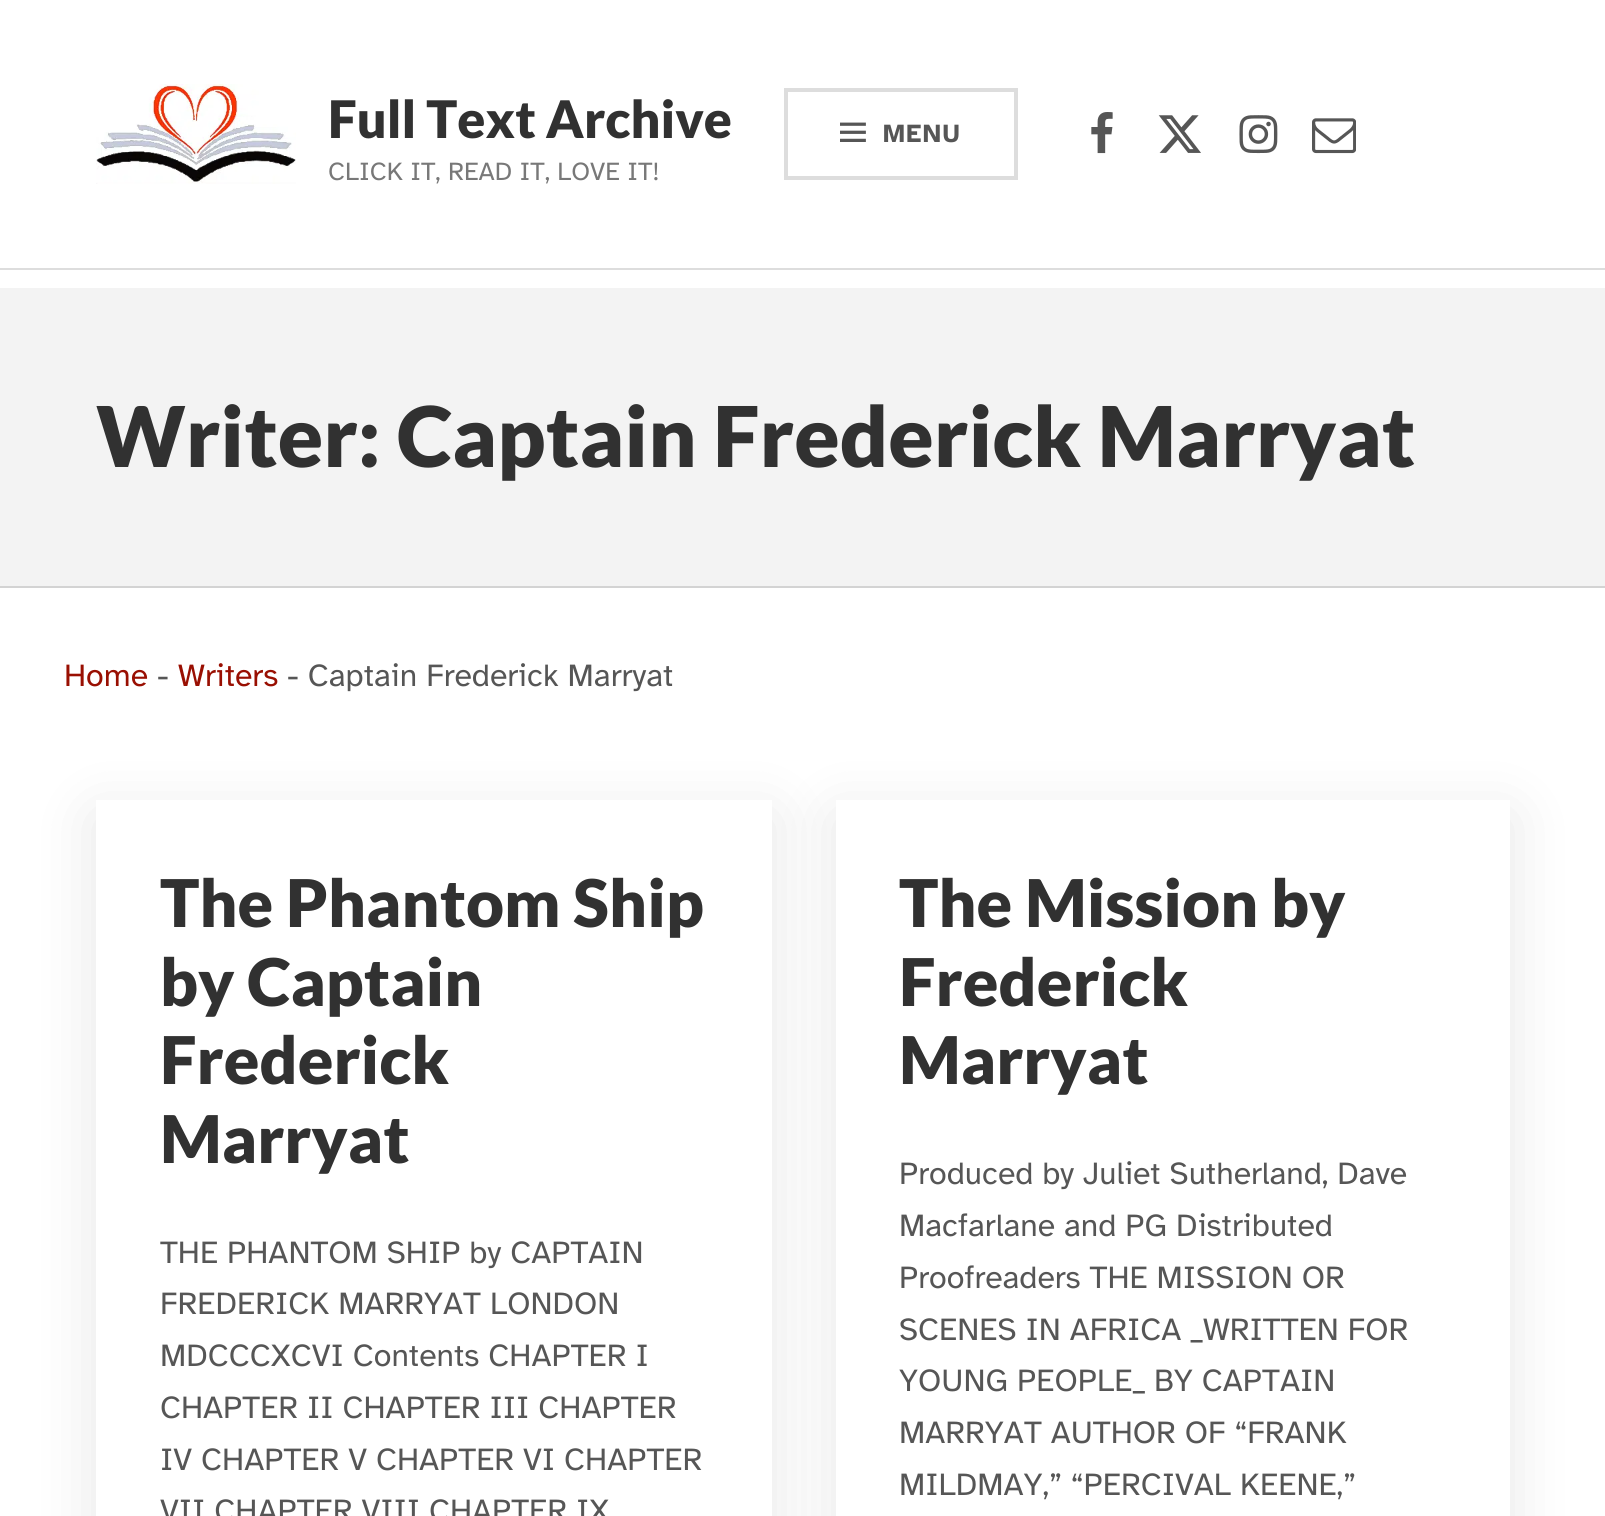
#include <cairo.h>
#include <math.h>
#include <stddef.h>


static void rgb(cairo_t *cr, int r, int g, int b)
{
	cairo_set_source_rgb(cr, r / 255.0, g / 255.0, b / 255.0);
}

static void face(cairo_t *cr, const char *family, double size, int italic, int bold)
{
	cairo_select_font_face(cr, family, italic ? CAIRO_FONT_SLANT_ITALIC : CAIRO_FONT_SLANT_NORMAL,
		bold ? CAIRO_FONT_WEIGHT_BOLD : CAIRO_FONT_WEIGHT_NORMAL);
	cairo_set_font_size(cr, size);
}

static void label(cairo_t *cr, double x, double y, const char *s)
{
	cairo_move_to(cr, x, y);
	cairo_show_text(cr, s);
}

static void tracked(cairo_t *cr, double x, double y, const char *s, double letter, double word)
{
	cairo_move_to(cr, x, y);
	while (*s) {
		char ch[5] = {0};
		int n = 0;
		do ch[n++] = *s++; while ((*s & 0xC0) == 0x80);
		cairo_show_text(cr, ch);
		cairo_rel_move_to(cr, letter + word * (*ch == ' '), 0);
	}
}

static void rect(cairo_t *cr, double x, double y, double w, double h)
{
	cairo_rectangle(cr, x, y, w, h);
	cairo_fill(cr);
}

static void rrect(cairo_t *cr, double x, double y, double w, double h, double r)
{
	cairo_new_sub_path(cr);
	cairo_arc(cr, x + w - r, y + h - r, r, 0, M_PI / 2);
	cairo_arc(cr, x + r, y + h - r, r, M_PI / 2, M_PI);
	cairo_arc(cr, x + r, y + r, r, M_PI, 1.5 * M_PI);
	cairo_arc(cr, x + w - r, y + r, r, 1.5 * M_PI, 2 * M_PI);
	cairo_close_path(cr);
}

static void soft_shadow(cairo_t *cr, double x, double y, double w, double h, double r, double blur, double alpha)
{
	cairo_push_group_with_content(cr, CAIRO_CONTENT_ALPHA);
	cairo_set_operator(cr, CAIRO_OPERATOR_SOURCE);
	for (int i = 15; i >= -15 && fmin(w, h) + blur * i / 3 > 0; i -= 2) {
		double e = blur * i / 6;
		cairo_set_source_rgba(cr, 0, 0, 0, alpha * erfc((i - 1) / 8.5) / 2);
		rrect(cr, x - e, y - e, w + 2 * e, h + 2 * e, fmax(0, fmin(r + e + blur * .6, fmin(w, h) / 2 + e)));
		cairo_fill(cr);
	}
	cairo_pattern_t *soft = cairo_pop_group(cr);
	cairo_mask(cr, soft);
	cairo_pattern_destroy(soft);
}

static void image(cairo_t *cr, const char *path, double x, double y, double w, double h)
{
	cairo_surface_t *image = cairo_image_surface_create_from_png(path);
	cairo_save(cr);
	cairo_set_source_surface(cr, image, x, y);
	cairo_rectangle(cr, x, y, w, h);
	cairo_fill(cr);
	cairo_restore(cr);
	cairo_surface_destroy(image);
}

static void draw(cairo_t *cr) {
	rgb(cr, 255, 255, 255);
	cairo_paint(cr);
	rgb(cr, 221, 221, 221);
	rect(cr, 0, 268, 1605, 2);
	image(cr, "image0.png", 96, 84, 200, 100);
	face(cr, "Lato Black", 51.75, 0, 0);
	rgb(cr, 49, 49, 49);
	label(cr, 328, 138, "Full Text Archive");
	face(cr, "Atkinson Hyperlegible", 25.9, 0, 0);
	rgb(cr, 120, 120, 120);
	label(cr, 328, 180, "CLICK IT, READ IT, LOVE IT!");
	cairo_rectangle(cr, 786, 90, 230, 88);
	rgb(cr, 221, 221, 221);
	cairo_set_line_width(cr, 4);
	cairo_stroke(cr);
	image(cr, "image1.png", 840, 122, 26, 20);
	face(cr, "Atkinson Hyperlegible", 25.9, 0, 1);
	rgb(cr, 86, 86, 86);
	tracked(cr, 883, 142, "MENU", 1.5, 0);
	image(cr, "image2.png", 1091, 112, 22, 42);
	image(cr, "image3.png", 1158, 115, 43, 38);
	image(cr, "image4.png", 1239, 115, 39, 39);
	image(cr, "image5.png", 1312, 118, 44, 36);
	rgb(cr, 243, 243, 243);
	rect(cr, 0, 288, 1605, 298);
	rgb(cr, 211, 211, 211);
	rect(cr, 0, 586, 1605, 2);
	face(cr, "Lato Black", 83.75, 0, 0);
	rgb(cr, 49, 49, 49);
	label(cr, 96, 467, "Writer: Captain Frederick Marryat");
	face(cr, "Atkinson Hyperlegible", 32, 0, 0);
	rgb(cr, 153, 15, 2);
	label(cr, 64, 686, "Home");
	rgb(cr, 86, 86, 86);
	label(cr, 157, 686, "-");
	rgb(cr, 153, 15, 2);
	label(cr, 178, 686, "Writers");
	rgb(cr, 86, 86, 86);
	label(cr, 287, 686, "- Captain Frederick Marryat");
	cairo_save(cr);
	cairo_set_fill_rule(cr, CAIRO_FILL_RULE_EVEN_ODD);
	cairo_new_path(cr);
	cairo_move_to(cr, 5, 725);
	cairo_line_to(cr, 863, 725);
	cairo_line_to(cr, 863, 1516);
	cairo_line_to(cr, 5, 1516);
	cairo_close_path(cr);
	cairo_move_to(cr, 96, 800);
	cairo_line_to(cr, 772, 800);
	cairo_line_to(cr, 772, 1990);
	cairo_line_to(cr, 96, 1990);
	cairo_close_path(cr);
	cairo_clip(cr);
	rgb(cr, 0, 0, 0);
	soft_shadow(cr, 96, 816, 676, 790, 0, 30, 0.1);
	cairo_restore(cr);
	face(cr, "Lato Black", 65.75, 0, 0);
	rgb(cr, 49, 49, 49);
	label(cr, 160, 927, "The Phantom Ship");
	label(cr, 160, 1006, "by Captain");
	label(cr, 160, 1084, "Frederick");
	label(cr, 160, 1163, "Marryat");
	face(cr, "Atkinson Hyperlegible", 32, 0, 0);
	rgb(cr, 86, 86, 86);
	label(cr, 160, 1263, "THE PHANTOM SHIP by CAPTAIN");
	label(cr, 160, 1314, "FREDERICK MARRYAT LONDON");
	label(cr, 160, 1366, "MDCCCXCVI Contents CHAPTER I");
	label(cr, 160, 1418, "CHAPTER II CHAPTER III CHAPTER");
	label(cr, 160, 1470, "IV CHAPTER V CHAPTER VI CHAPTER");
	label(cr, 160, 1521, "VII CHAPTER VIII CHAPTER IX");
	cairo_save(cr);
	cairo_set_fill_rule(cr, CAIRO_FILL_RULE_EVEN_ODD);
	cairo_new_path(cr);
	cairo_move_to(cr, 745, 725);
	cairo_line_to(cr, 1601, 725);
	cairo_line_to(cr, 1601, 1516);
	cairo_line_to(cr, 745, 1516);
	cairo_close_path(cr);
	cairo_move_to(cr, 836, 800);
	cairo_line_to(cr, 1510, 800);
	cairo_line_to(cr, 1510, 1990);
	cairo_line_to(cr, 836, 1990);
	cairo_close_path(cr);
	cairo_clip(cr);
	rgb(cr, 0, 0, 0);
	soft_shadow(cr, 836, 816, 674, 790, 0, 30, 0.1);
	cairo_restore(cr);
	face(cr, "Lato Black", 65.75, 0, 0);
	rgb(cr, 49, 49, 49);
	label(cr, 899, 927, "The Mission by");
	label(cr, 899, 1006, "Frederick");
	label(cr, 899, 1084, "Marryat");
	face(cr, "Atkinson Hyperlegible", 32, 0, 0);
	rgb(cr, 86, 86, 86);
	label(cr, 899, 1184, "Produced by Juliet Sutherland, Dave");
	label(cr, 899, 1236, "Macfarlane and PG Distributed");
	label(cr, 899, 1288, "Proofreaders THE MISSION OR");
	label(cr, 899, 1340, "SCENES IN AFRICA _WRITTEN FOR");
	label(cr, 899, 1391, "YOUNG PEOPLE_ BY CAPTAIN");
	label(cr, 899, 1443, "MARRYAT AUTHOR OF “FRANK");
	label(cr, 899, 1495, "MILDMAY,” “PERCIVAL KEENE,”");
}

int main(void) {
	cairo_surface_t *surface = cairo_image_surface_create(CAIRO_FORMAT_RGB24, 1605, 1516);
	cairo_t *cr = cairo_create(surface);
	cairo_font_options_t *options = cairo_font_options_create();
	cairo_font_options_set_hint_metrics(options, CAIRO_HINT_METRICS_OFF);
	cairo_font_options_set_hint_style(options, CAIRO_HINT_STYLE_NONE);
	cairo_set_font_options(cr, options);
	cairo_set_miter_limit(cr, 4);
	draw(cr);
	cairo_surface_write_to_png(surface, "render.png");
	cairo_font_options_destroy(options);
	cairo_destroy(cr);
	cairo_surface_destroy(surface);
	return 0;
}
